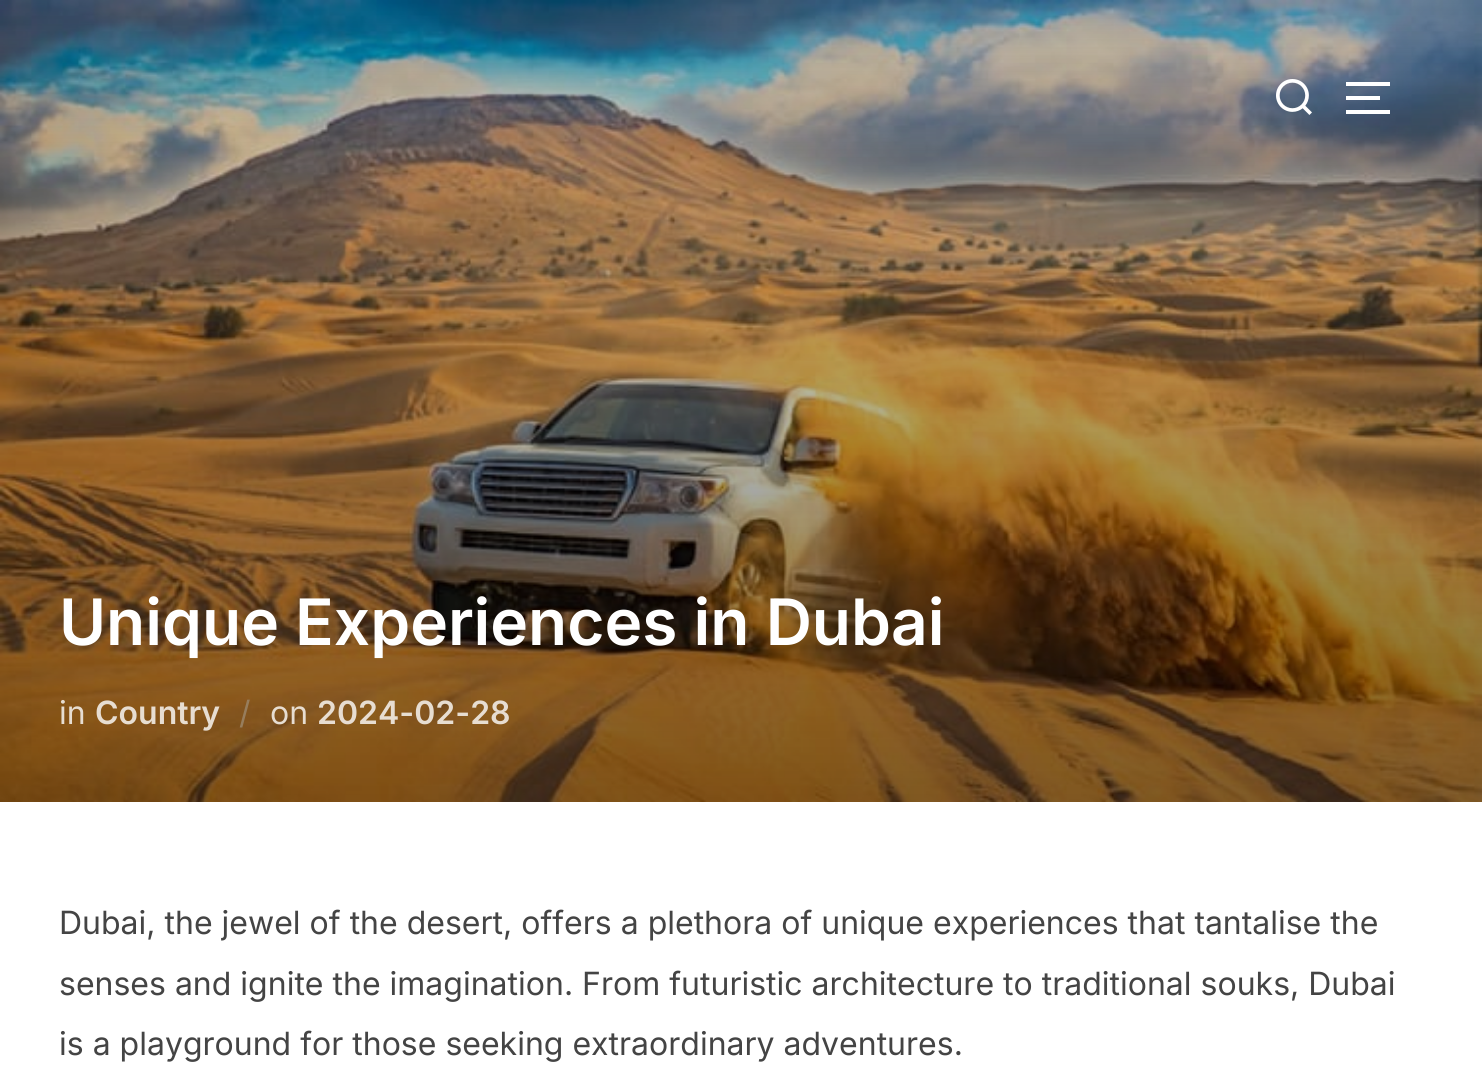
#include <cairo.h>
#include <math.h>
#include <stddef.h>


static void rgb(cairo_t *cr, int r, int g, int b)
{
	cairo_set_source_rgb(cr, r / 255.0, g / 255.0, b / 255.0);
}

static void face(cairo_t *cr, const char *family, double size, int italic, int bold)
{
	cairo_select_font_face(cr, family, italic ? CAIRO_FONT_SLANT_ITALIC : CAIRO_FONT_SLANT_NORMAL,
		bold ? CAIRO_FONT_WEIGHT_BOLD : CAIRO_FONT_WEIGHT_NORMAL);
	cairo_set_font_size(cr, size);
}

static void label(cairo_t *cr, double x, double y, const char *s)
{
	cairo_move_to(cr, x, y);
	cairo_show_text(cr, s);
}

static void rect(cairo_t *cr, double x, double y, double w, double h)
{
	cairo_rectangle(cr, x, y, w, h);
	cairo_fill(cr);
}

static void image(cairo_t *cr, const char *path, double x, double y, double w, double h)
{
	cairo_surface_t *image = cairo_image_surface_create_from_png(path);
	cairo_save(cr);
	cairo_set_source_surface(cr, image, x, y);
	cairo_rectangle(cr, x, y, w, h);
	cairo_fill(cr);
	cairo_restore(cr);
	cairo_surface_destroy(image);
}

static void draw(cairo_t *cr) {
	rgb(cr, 255, 255, 255);
	cairo_paint(cr);
	image(cr, "image1.png", 0, 0, 1482, 802);
	image(cr, "image0.png", 1276, 79, 36, 36);
	rgb(cr, 255, 255, 255);
	rect(cr, 1346, 82, 44, 4);
	rect(cr, 1346, 96, 34, 4);
	rect(cr, 1346, 110, 44, 4);
	face(cr, "Inter SemiBold", 64, 0, 0);
	label(cr, 59, 645, "Unique Experiences in Dubai");
	face(cr, "Inter", 32, 0, 0);
	rgb(cr, 231, 221, 209);
	label(cr, 59, 724, "in");
	face(cr, "Inter SemiBold", 32, 0, 0);
	label(cr, 95, 724, "Сountry");
	face(cr, "Inter", 32, 0, 0);
	rgb(cr, 151, 125, 93);
	label(cr, 239, 724, "/");
	rgb(cr, 231, 221, 209);
	label(cr, 270, 724, "on");
	face(cr, "Inter SemiBold", 32, 0, 0);
	label(cr, 317, 724, "2024-02-28");
	face(cr, "Inter", 32, 0, 0);
	rgb(cr, 68, 68, 68);
	label(cr, 59, 934, "Dubai, the jewel of the desert, offers a plethora of unique experiences that tantalise the");
	label(cr, 59, 995, "senses and ignite the imagination. From futuristic architecture to traditional souks, Dubai");
	label(cr, 59, 1055, "is a playground for those seeking extraordinary adventures.");
}

int main(void) {
	cairo_surface_t *surface = cairo_image_surface_create(CAIRO_FORMAT_RGB24, 1482, 1078);
	cairo_t *cr = cairo_create(surface);
	cairo_font_options_t *options = cairo_font_options_create();
	cairo_font_options_set_hint_metrics(options, CAIRO_HINT_METRICS_OFF);
	cairo_font_options_set_hint_style(options, CAIRO_HINT_STYLE_NONE);
	cairo_set_font_options(cr, options);
	cairo_set_miter_limit(cr, 4);
	draw(cr);
	cairo_surface_write_to_png(surface, "render.png");
	cairo_font_options_destroy(options);
	cairo_destroy(cr);
	cairo_surface_destroy(surface);
	return 0;
}
